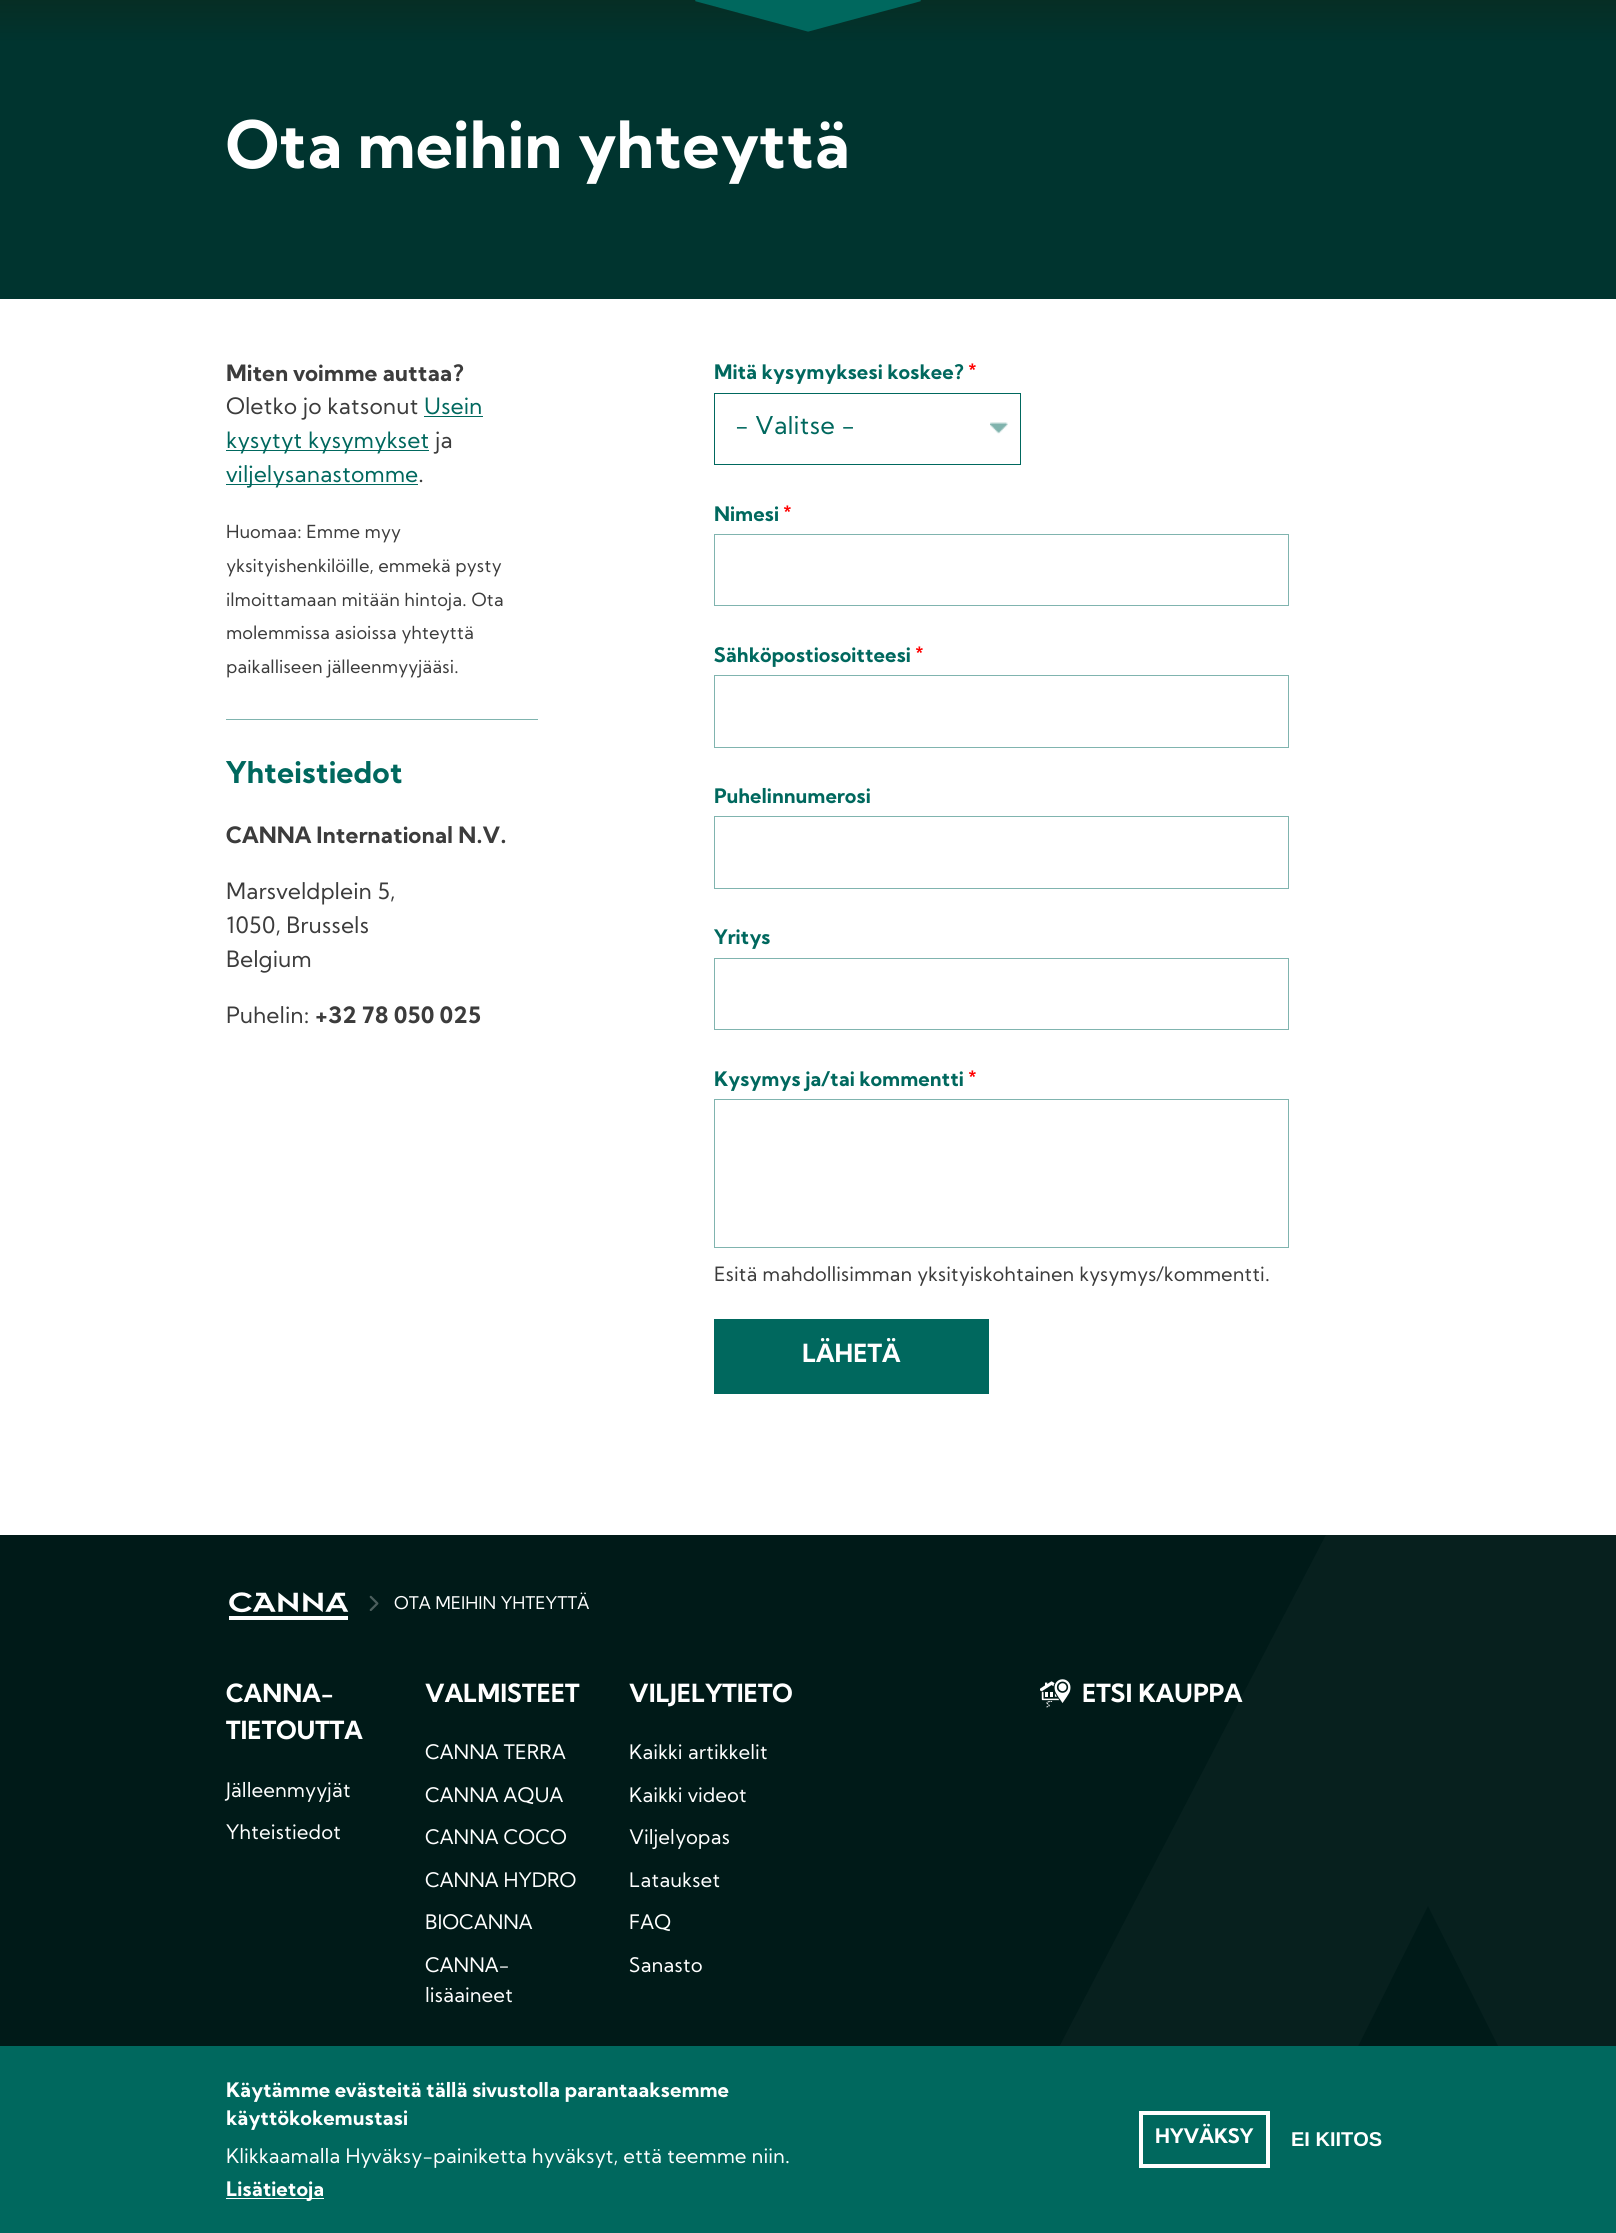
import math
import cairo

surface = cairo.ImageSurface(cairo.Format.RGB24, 1616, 2233)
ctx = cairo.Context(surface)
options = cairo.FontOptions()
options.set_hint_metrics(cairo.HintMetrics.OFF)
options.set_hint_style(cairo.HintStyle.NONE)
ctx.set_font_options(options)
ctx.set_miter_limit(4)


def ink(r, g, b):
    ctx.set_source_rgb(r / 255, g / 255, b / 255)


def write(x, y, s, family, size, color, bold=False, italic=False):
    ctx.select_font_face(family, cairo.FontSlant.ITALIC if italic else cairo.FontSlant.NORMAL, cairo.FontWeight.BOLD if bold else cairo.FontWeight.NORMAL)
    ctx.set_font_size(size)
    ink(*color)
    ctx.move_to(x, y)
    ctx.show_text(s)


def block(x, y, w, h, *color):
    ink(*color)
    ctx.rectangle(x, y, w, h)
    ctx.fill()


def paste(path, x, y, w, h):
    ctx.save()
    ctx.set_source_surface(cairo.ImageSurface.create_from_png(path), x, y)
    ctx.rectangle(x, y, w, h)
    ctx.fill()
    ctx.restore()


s1 = dict(family="Kumbh Sans", size=65, color=(255, 255, 255), bold=True)
s2 = dict(family="Kumbh Sans", size=22.5, color=(60, 60, 60), bold=True)
s3 = dict(family="Kumbh Sans", size=22.5, color=(60, 60, 60))
s4 = dict(family="Kumbh Sans", size=22.5, color=(0, 104, 94))
s5 = dict(family="Kumbh Sans", size=18, color=(60, 60, 60))
s6 = dict(family="Kumbh Sans", size=30, color=(0, 104, 94), bold=True)
s7 = dict(family="Kumbh Sans", size=20, color=(0, 104, 94), bold=True)
s8 = dict(family="Kumbh Sans", size=14, color=(255, 0, 0), bold=True)
s9 = dict(family="Kumbh Sans", size=25, color=(0, 104, 94))
s10 = dict(family="Kumbh Sans", size=19.7, color=(60, 60, 60))
s11 = dict(family="Kumbh Sans", size=25, color=(255, 255, 255), bold=True)
s12 = dict(family="Kumbh Sans", size=17.5, color=(255, 255, 255))
s13 = dict(family="Kumbh Sans", size=20, color=(255, 255, 255))
s14 = dict(family="Kumbh Sans", size=20, color=(255, 255, 255), bold=True)
s15 = dict(family="Liberation Sans", size=20, color=(255, 255, 255), bold=True)

ink(255, 255, 255)
ctx.paint()
gradient = cairo.LinearGradient(808, 43, 808, -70)
gradient.add_color_stop_rgba(0, 0, 0.204, 0.184, 1)
gradient.add_color_stop_rgba(1, 0.063, 0.137, 0.075, 1)
ctx.set_source(gradient)
ctx.rectangle(0, 0, 1616, 43)
ctx.fill()
paste("pic1.png", 695, 0, 226, 32)
block(0, 43, 1616, 256, 0, 52, 47)
write(226, 168, "Ota meihin yhteyttä", **s1)
write(226, 381, "Miten voimme auttaa?", **s2)
write(226, 414, "Oletko jo katsonut", **s3)
write(424, 414, "Usein", **s4)
block(424, 416, 59, 1, 0, 104, 94)
block(226, 450, 203, 1, 0, 104, 94)
write(226, 448, "kysytyt kysymykset", **s4)
write(435, 448, "ja", **s3)
block(226, 484, 192, 1, 0, 104, 94)
write(226, 482, "viljelysanastomme", **s4)
write(418, 482, ".", **s3)
write(226, 538, "Huomaa: Emme myy", **s5)
write(226, 572, "yksityishenkilöille, emmekä pysty", **s5)
write(226, 606, "ilmoittamaan mitään hintoja. Ota", **s5)
write(226, 639, "molemmissa asioissa yhteyttä", **s5)
write(226, 673, "paikalliseen jälleenmyyjääsi.", **s5)
block(226, 719, 312, 1, 128, 180, 175)
write(226, 783, "Yhteistiedot", **s6)
write(226, 843, "CANNA International N.V.", **s2)
write(226, 899, "Marsveldplein 5,", **s3)
write(226, 933, "1050, Brussels", **s3)
write(226, 967, "Belgium", **s3)
write(226, 1023, "Puhelin:", **s3)
write(315, 1023, "+32 78 050 025", **s2)
write(714, 379, "Mitä kysymyksesi koskee?", **s7)
write(968, 374, "*", **s8)
paste("pic2.png", 990, 422, 18, 12)
ctx.rectangle(714.5, 393.5, 306, 71)
ink(0, 104, 94)
ctx.set_line_width(1)
ctx.stroke()
ctx.save()
ctx.rectangle(735, 416, 240, 25)
ctx.clip()
write(735, 434, "- Valitse -", **s9)
ctx.restore()
write(714, 521, "Nimesi", **s7)
write(783, 516, "*", **s8)
ctx.rectangle(714.5, 534.5, 574, 71)
ink(128, 180, 175)
ctx.stroke()
write(714, 662, "Sähköpostiosoitteesi", **s7)
write(915, 657, "*", **s8)
ctx.rectangle(714.5, 675.5, 574, 72)
ink(128, 180, 175)
ctx.stroke()
write(714, 803, "Puhelinnumerosi", **s7)
ctx.rectangle(714.5, 816.5, 574, 72)
ink(128, 180, 175)
ctx.stroke()
write(714, 944, "Yritys", **s7)
ctx.rectangle(714.5, 958.5, 574, 71)
ink(128, 180, 175)
ctx.stroke()
write(714, 1086, "Kysymys ja/tai kommentti", **s7)
write(968, 1081, "*", **s8)
ctx.rectangle(714.5, 1099.5, 574, 148)
ink(128, 180, 175)
ctx.stroke()
write(714, 1281, "Esitä mahdollisimman yksityiskohtainen kysymys/kommentti.", **s10)
block(714, 1319, 275, 75, 0, 104, 94)
write(802, 1362, "LÄHETÄ", **s11)
block(0, 1535, 1616, 511, 0, 26, 24)
paste("pic3.png", 229, 1592, 120, 28)
paste("pic4.png", 369, 1595, 10, 16)
write(394, 1609, "OTA MEIHIN YHTEYTTÄ", **s12)
write(226, 1702, "CANNA-", **s11)
write(226, 1739, "TIETOUTTA", **s11)
write(226, 1797, "Jälleenmyyjät", **s13)
write(226, 1839, "Yhteistiedot", **s13)
write(425, 1702, "VALMISTEET", **s11)
write(425, 1759, "CANNA TERRA", **s13)
write(425, 1802, "CANNA AQUA", **s13)
write(425, 1844, "CANNA COCO", **s13)
write(425, 1887, "CANNA HYDRO", **s13)
write(425, 1929, "BIOCANNA", **s13)
write(425, 1972, "CANNA-", **s13)
write(425, 2002, "lisäaineet", **s13)
write(629, 1702, "VILJELYTIETO", **s11)
write(629, 1759, "Kaikki artikkelit", **s13)
write(629, 1802, "Kaikki videot", **s13)
write(629, 1844, "Viljelyopas", **s13)
write(629, 1887, "Lataukset", **s13)
write(629, 1929, "FAQ", **s13)
write(629, 1972, "Sanasto", **s13)
ctx.set_source_rgba(1, 1, 1, 0.03)
ctx.new_path()
ctx.move_to(1259, 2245)
ctx.line_to(1428, 1906)
ctx.line_to(1598, 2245)
ctx.line_to(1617, 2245)
ctx.line_to(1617, 1531)
ctx.line_to(1328, 1531)
ctx.line_to(956, 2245)
ctx.close_path()
ctx.fill()
paste("pic5.png", 1040, 1679, 31, 29)
write(1082, 1702, "ETSI KAUPPA", **s11)
block(0, 2046, 1616, 187, 0, 104, 94)
write(226, 2097, "Käytämme evästeitä tällä sivustolla parantaaksemme", **s14)
write(226, 2125, "käyttökokemustasi", **s14)
write(226, 2163, "Klikkaamalla Hyväksy-painiketta hyväksyt, että teemme niin.", **s13)
block(226, 2198, 98, 1, 255, 255, 255)
write(226, 2196, "Lisätietoja", **s14)
ctx.rectangle(1141, 2113, 127, 53)
ctx.set_line_width(4)
ctx.stroke()
write(1155, 2143, "HYVÄKSY", **s14)
write(1291, 2146, "EI KIITOS", **s15)
surface.write_to_png("screenshot.png")
